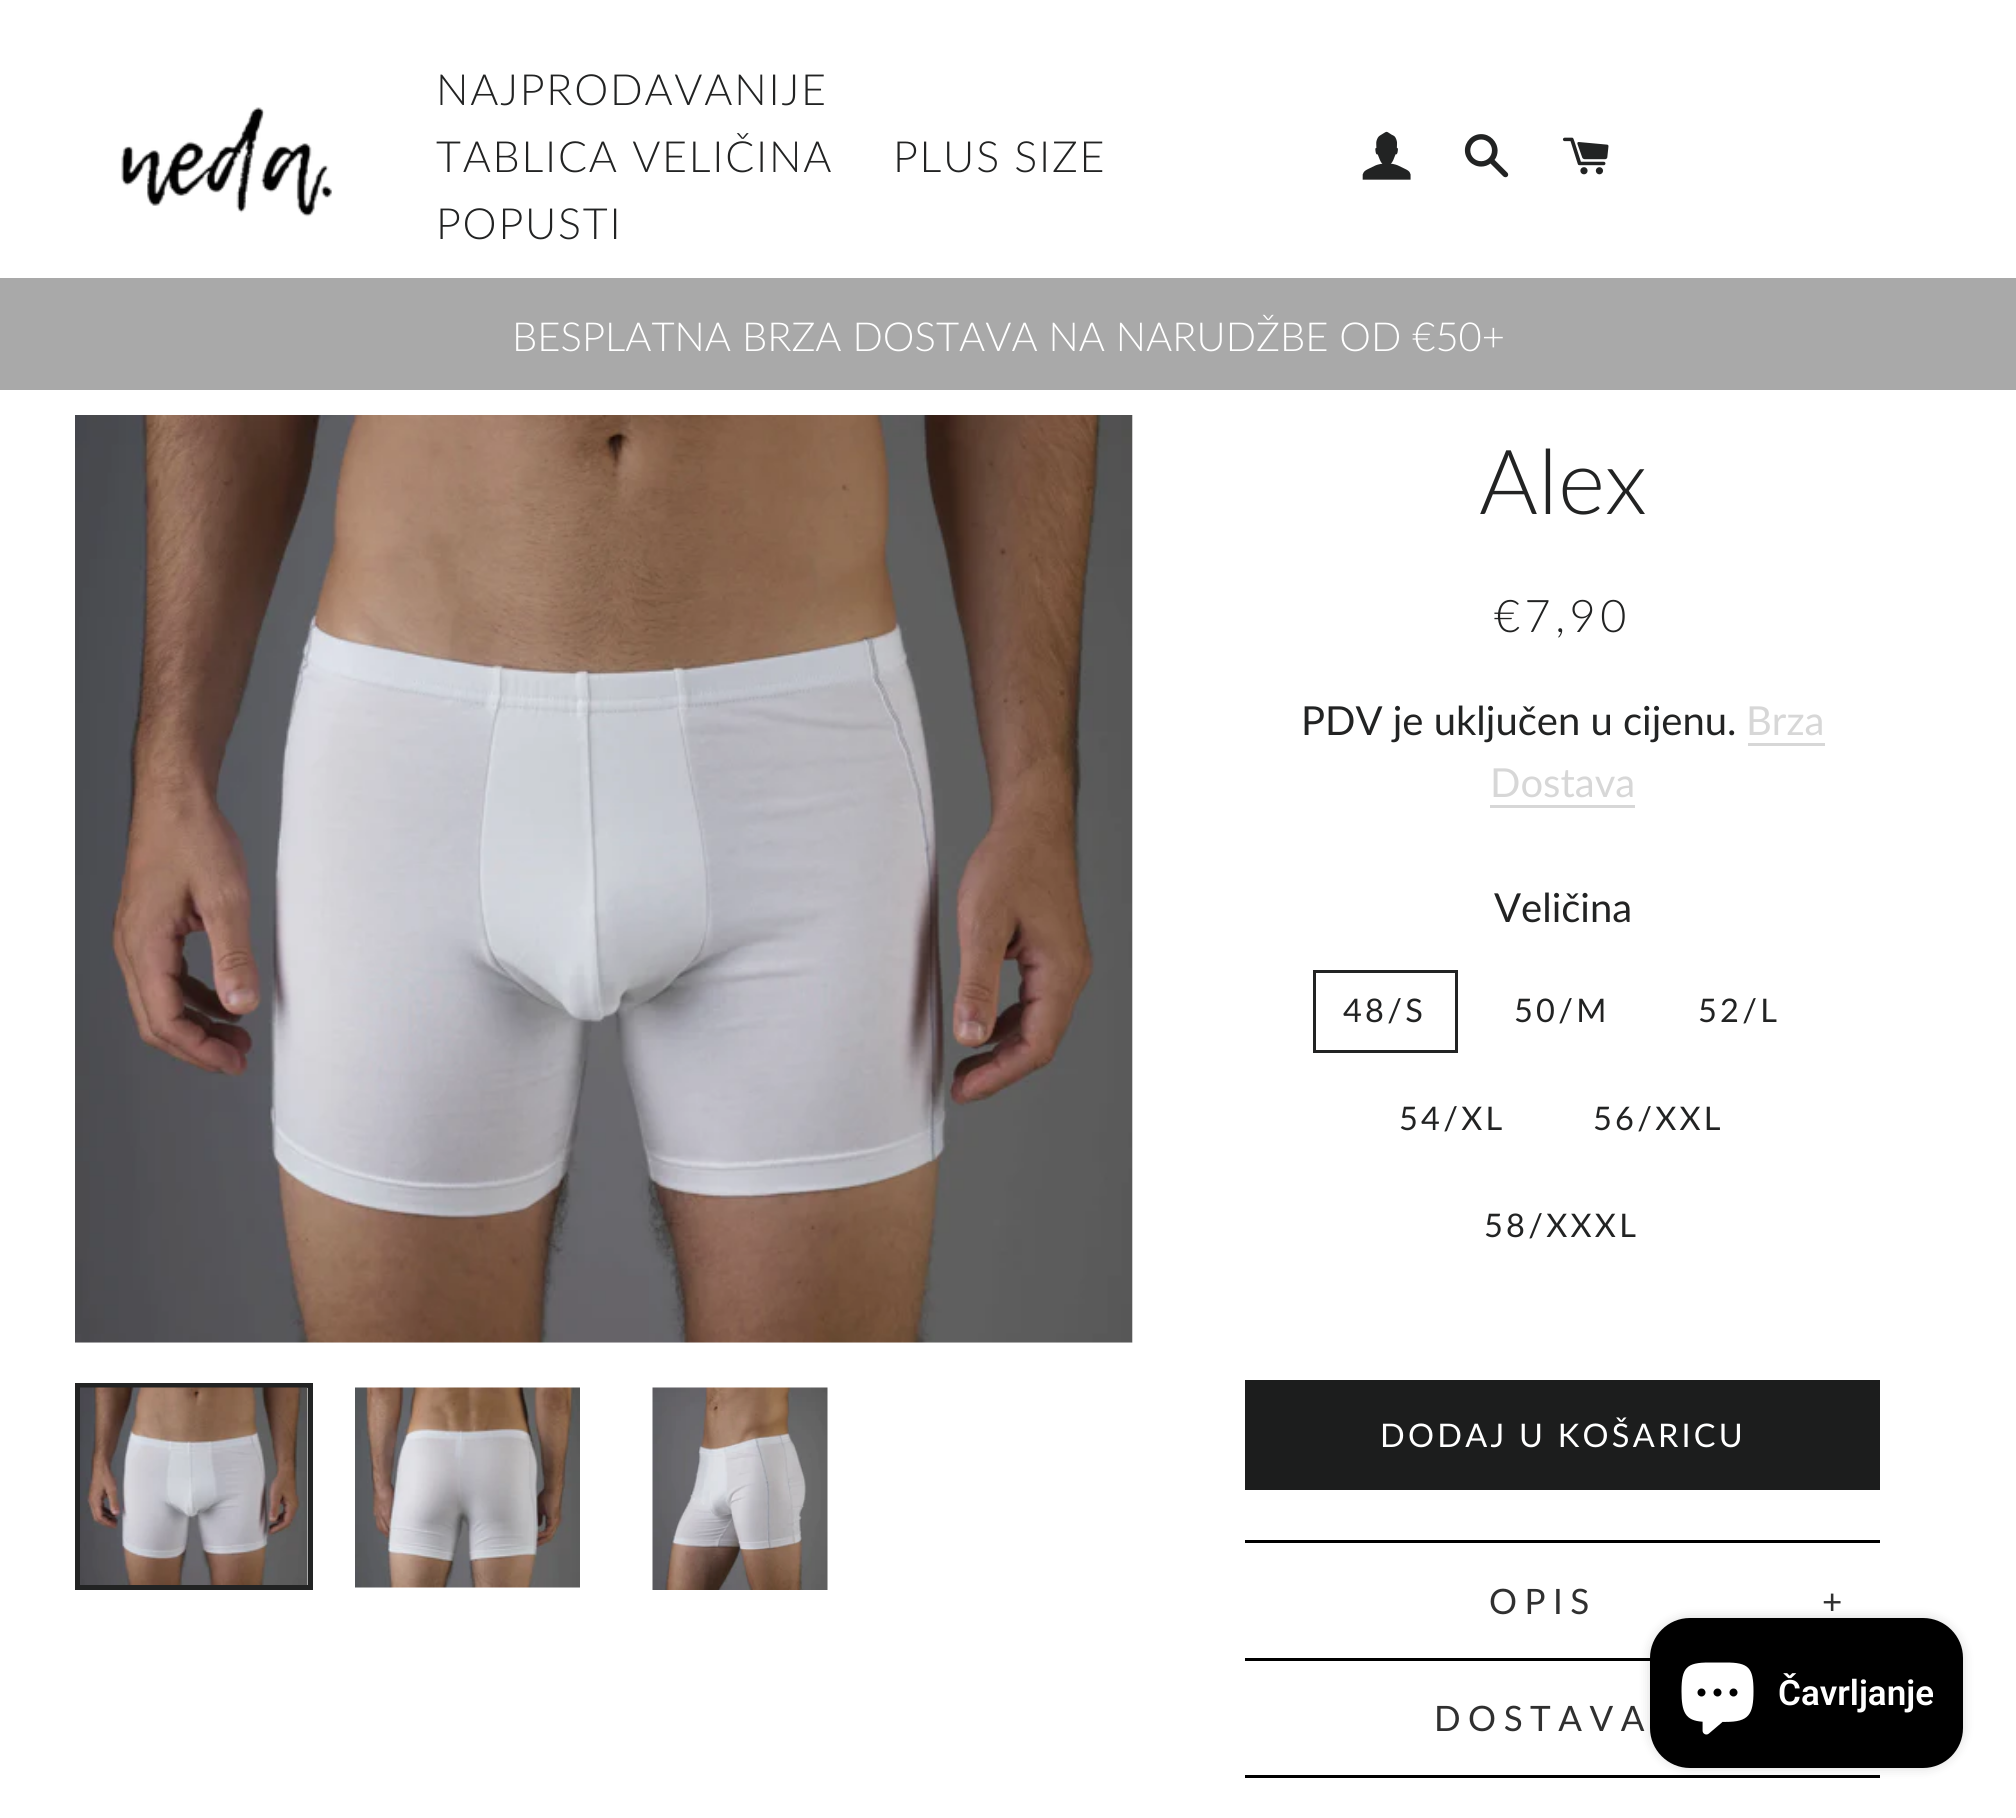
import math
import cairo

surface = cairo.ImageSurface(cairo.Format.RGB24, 2016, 1818)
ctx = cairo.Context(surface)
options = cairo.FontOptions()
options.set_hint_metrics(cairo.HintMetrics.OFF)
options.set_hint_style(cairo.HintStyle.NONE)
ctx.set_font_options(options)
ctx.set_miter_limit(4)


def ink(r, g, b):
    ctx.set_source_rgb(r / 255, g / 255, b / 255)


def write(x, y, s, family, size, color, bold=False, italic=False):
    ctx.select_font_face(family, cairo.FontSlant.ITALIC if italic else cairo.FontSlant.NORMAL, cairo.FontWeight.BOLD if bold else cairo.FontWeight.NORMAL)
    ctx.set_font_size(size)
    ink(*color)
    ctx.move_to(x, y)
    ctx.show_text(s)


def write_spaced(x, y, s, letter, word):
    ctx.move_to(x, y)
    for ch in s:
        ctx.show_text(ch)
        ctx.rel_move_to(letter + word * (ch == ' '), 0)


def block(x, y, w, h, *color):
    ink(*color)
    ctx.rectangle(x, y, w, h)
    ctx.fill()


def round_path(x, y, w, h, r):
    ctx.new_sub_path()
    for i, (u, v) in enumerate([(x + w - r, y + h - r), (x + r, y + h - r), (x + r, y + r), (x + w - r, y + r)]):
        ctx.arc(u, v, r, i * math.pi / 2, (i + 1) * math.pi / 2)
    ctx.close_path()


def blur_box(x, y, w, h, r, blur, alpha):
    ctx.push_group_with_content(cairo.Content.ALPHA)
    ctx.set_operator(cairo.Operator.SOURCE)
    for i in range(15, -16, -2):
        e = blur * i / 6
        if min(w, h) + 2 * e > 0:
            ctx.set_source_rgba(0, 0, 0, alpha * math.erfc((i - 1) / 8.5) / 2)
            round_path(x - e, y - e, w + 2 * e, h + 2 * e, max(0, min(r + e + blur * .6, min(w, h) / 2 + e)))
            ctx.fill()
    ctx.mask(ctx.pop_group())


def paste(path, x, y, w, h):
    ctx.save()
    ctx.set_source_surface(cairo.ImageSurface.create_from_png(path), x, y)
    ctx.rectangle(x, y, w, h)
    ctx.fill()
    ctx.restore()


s1 = dict(family="Lato Light", size=40, color=(255, 255, 255))
s2 = dict(family="Lato Light", size=90, color=(34, 35, 35))
s3 = dict(family="Lato", size=40, color=(34, 35, 35))
s4 = dict(family="Lato", size=40, color=(215, 215, 215))
s5 = dict(family="Roboto SemiBold", size=35, color=(255, 255, 255))

ink(255, 255, 255)
ctx.paint()
paste("pic1.png", 121, 107, 211, 110)
ctx.select_font_face("Lato Light")
ctx.set_font_size(43)
ink(34, 35, 35)
write_spaced(436, 105, "NAJPRODAVANIJE", 1.75, 0)
write_spaced(436, 172, "TABLICA VELIČINA", 1.75, 0)
write_spaced(893, 172, "PLUS SIZE", 1.75, 0)
write_spaced(436, 239, "POPUSTI", 1.75, 0)
paste("pic2.png", 1362, 131, 49, 49)
paste("pic3.png", 1464, 134, 45, 44)
paste("pic4.png", 1562, 137, 47, 38)
block(0, 278, 2016, 112, 169, 169, 169)
write(512, 351, "BESPLATNA BRZA DOSTAVA NA NARUDŽBE OD €50+", **s1)
block(75, 415, 1058, 928, 247, 247, 247)
paste("pic5.png", 75, 415, 1058, 928)
ctx.rectangle(77.5, 1385.5, 233, 202)
ink(34, 35, 35)
ctx.set_line_width(5)
ctx.stroke()
paste("pic6.png", 80, 1387, 228, 198)
paste("pic7.png", 355, 1387, 225, 201)
paste("pic8.png", 652, 1387, 176, 203)
write(1479, 514, "Alex", **s2)
ctx.set_font_size(45)
write_spaced(1494, 632, "€7,90", 4.5, 0)
write(1301, 735, "PDV je uključen u cijenu.", **s3)
write(1746, 735, "Brza", **s4)
block(1748, 743, 77, 3, 215, 215, 215)
write(1490, 797, "Dostava", **s4)
block(1490, 805, 145, 3, 215, 215, 215)
write(1494, 922, "Veličina", **s3)
ctx.rectangle(1314.5, 971.5, 142, 80)
ctx.set_line_width(3)
ctx.stroke()
ctx.set_font_size(32.5)
write_spaced(1343, 1022, "48/S", 3.25, 0)
write_spaced(1514, 1022, "50/M", 3.25, 0)
write_spaced(1698, 1022, "52/L", 3.25, 0)
write_spaced(1399, 1130, "54/XL", 3.25, 0)
write_spaced(1593, 1130, "56/XXL", 3.25, 0)
write_spaced(1484, 1237, "58/XXXL", 3.25, 0)
block(1245, 1380, 635, 110, 28, 29, 29)
ink(255, 255, 255)
write_spaced(1380, 1447, "DODAJ U KOŠARICU", 3.25, 0)
block(1245, 1540, 635, 3, 0, 0, 0)
ctx.set_font_size(35)
ink(48, 48, 48)
write_spaced(1489, 1614, "OPIS", 7.5, 0)
write_spaced(1822, 1614, "+", 7.5, 0)
block(1245, 1658, 405, 3, 0, 0, 0)
ink(48, 48, 48)
write_spaced(1434, 1731, "DOSTAVA", 7.5, 0)
block(1245, 1775, 635, 3, 0, 0, 0)
ink(0, 0, 0)
blur_box(1650, 1618, 313, 150, 40, 6, 0.15)
ink(0, 0, 0)
round_path(1650, 1618, 313, 150, 40)
ctx.fill()
paste("pic9.png", 1681, 1662, 73, 73)
write(1778, 1705, "Čavrljanje", **s5)
surface.write_to_png("screenshot.png")
